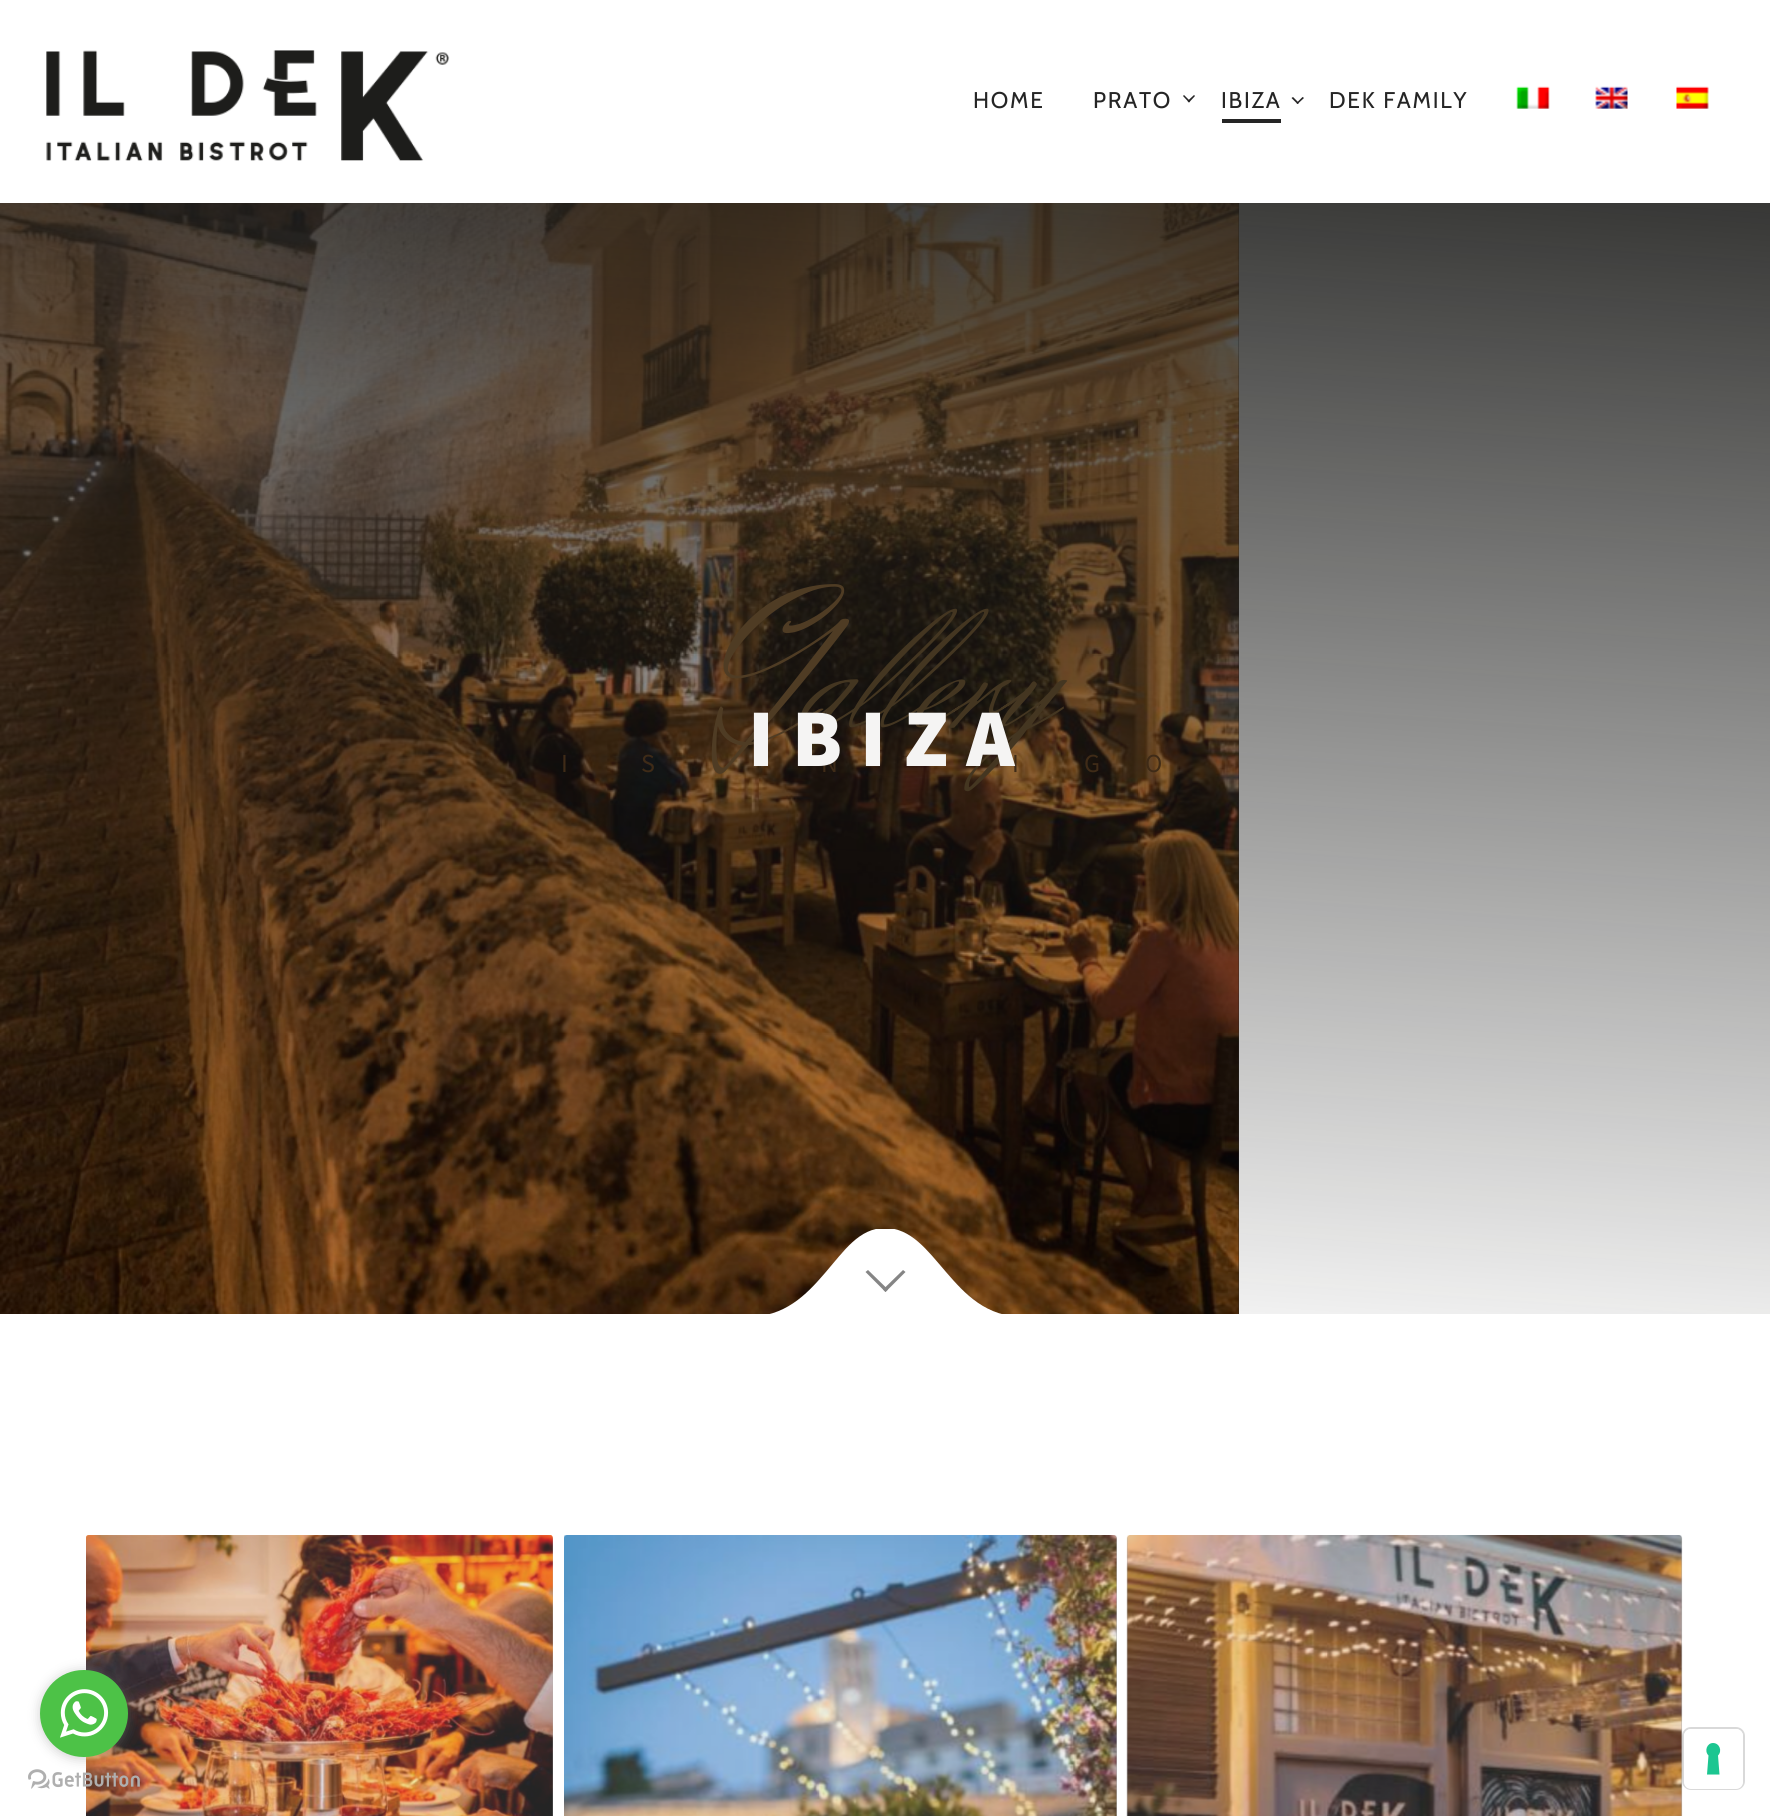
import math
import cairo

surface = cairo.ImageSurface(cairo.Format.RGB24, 1770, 1816)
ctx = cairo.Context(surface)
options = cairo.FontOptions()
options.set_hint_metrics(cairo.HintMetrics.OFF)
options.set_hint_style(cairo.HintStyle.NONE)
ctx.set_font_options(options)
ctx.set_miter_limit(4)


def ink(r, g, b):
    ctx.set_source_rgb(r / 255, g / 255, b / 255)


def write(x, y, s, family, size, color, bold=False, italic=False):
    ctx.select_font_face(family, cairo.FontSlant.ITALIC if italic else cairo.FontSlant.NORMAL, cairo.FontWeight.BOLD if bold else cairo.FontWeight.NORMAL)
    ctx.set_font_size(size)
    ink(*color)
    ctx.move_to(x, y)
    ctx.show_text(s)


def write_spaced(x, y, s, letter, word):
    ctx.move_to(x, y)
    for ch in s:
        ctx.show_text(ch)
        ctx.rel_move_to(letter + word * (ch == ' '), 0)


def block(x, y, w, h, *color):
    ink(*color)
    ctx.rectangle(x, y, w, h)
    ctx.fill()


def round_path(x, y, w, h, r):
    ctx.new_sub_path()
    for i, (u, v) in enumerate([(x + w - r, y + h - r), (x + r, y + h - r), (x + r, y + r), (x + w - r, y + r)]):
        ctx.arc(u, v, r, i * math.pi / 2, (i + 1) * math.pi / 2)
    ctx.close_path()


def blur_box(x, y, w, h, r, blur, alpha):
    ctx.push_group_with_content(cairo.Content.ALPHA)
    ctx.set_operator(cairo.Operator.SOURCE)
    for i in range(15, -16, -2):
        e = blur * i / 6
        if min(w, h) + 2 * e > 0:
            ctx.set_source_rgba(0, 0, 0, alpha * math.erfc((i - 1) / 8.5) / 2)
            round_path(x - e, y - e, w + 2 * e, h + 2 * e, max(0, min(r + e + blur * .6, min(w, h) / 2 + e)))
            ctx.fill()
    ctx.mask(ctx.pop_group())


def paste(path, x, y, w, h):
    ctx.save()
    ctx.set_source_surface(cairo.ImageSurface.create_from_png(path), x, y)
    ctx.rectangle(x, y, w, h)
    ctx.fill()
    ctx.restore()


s1 = dict(family="Herr Von Muellerhoff", size=175, color=(68, 54, 33))

ink(255, 255, 255)
ctx.paint()
paste("pic1.png", 46, 50, 404, 111)
ctx.select_font_face("Cabin")
ctx.set_font_size(22.75)
ink(37, 37, 37)
write_spaced(973, 108, "HOME", 1.75, 0)
write_spaced(1093, 108, "PRATO", 1.75, 0)
ink(38, 37, 38)
ctx.new_path()
ctx.move_to(1194, 95)
ctx.line_to(1195, 96)
ctx.line_to(1189, 102.5)
ctx.line_to(1187.5, 101)
ctx.close_path()
ctx.fill()
ctx.new_path()
ctx.move_to(1184, 95)
ctx.line_to(1190, 101)
ctx.line_to(1189, 102.5)
ctx.line_to(1183, 96)
ctx.close_path()
ctx.fill()
ink(37, 37, 37)
write_spaced(1221, 108, "IBIZA", 1.75, 0)
block(1222, 119, 59, 4, 37, 37, 37)
ink(38, 37, 38)
ctx.new_path()
ctx.move_to(1302.5, 97)
ctx.line_to(1304, 98)
ctx.line_to(1297.5, 104)
ctx.line_to(1296.5, 103)
ctx.close_path()
ctx.fill()
ctx.new_path()
ctx.move_to(1293, 97)
ctx.line_to(1299, 103)
ctx.line_to(1297.5, 104)
ctx.line_to(1291.5, 98)
ctx.close_path()
ctx.fill()
ink(37, 37, 37)
write_spaced(1329, 108, "DEK FAMILY", 1.75, 0)
paste("pic2.png", 1516, 86, 34, 23)
paste("pic3.png", 1595, 86, 33, 23)
paste("pic4.png", 1676, 86, 33, 23)
block(1238, 203, 1, 1111, 37, 37, 37)
paste("pic5.png", 0, 203, 1239, 1111)
gradient = cairo.LinearGradient(934, -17, 837, 1373)
gradient.add_color_stop_rgba(0, 0.114, 0.114, 0.106, 1)
gradient.add_color_stop_rgba(1, 0.114, 0.114, 0.106, 0)
ctx.set_source(gradient)
ctx.rectangle(0, 203, 1770, 1111)
ctx.fill()
ctx.select_font_face("Source Sans Pro")
ctx.set_font_size(26)
ink(63, 43, 23)
write_spaced(821, 772, "N", 8, 0)
write_spaced(1012, 772, "I", 8, 0)
write(800, 727, "allery", **s1)
ctx.set_font_size(214)
ink(79, 60, 36)
write_spaced(713, 742, "G", 126, 0)
ctx.select_font_face("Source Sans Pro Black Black")
ctx.set_font_size(82)
ink(245, 244, 243)
write_spaced(748, 766, "IBIZA", 18, 0)
ctx.select_font_face("Source Sans Pro")
ctx.set_font_size(26)
ink(63, 43, 23)
write_spaced(561, 772, "I", 8, 0)
write_spaced(641, 772, "S", 8, 0)
write_spaced(1084, 772, "G", 8, 0)
write_spaced(1145, 772, "O", 8, 0)
ctx.save()
ctx.rectangle(718, 1229, 336, 106)
ctx.clip()
ink(255, 255, 255)
ctx.new_path()
ctx.move_to(885, 1335)
ctx.line_to(960, 1326)
ctx.curve_to(997, 1321, 1031, 1317, 1024, 1317)
ctx.curve_to(986, 1317, 965, 1294, 946, 1272)
ctx.curve_to(927, 1250, 911, 1228, 885, 1228)
ctx.curve_to(859, 1228, 844, 1251, 825, 1273)
ctx.curve_to(806, 1295, 785, 1317, 747, 1317)
ctx.curve_to(740, 1317, 736, 1317, 753, 1319)
ctx.close_path()
ctx.fill()
ctx.restore()
ink(133, 133, 133)
ctx.new_path()
ctx.move_to(903, 1270)
ctx.line_to(905.5, 1272)
ctx.line_to(885.5, 1292)
ctx.line_to(883, 1289.5)
ctx.close_path()
ctx.fill()
ctx.new_path()
ctx.move_to(868, 1270)
ctx.line_to(888, 1289.5)
ctx.line_to(885.5, 1292)
ctx.line_to(865.5, 1272)
ctx.close_path()
ctx.fill()
ink(179, 179, 179)
round_path(86, 1535, 467, 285, 4)
ctx.fill()
paste("pic6.png", 86, 1535, 467, 281)
round_path(564, 1535, 553, 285, 4)
ctx.fill()
paste("pic7.png", 564, 1535, 553, 281)
round_path(1127, 1535, 555, 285, 4)
ctx.fill()
paste("pic8.png", 1126, 1535, 557, 281)
paste("pic10.png", 28, 1769, 112, 20)
ink(136, 136, 136)
blur_box(40, 1671, 88, 88, 44, 6, 0.4)
ink(77, 194, 71)
round_path(40, 1670, 88, 87, 43.5)
ctx.fill()
paste("pic9.png", 60, 1689, 49, 49)
round_path(1683, 1728, 61, 61, 8)
ctx.set_source_rgba(0, 0, 0, 0.15)
ctx.stroke()
ink(255, 255, 255)
round_path(1684, 1729, 59, 60, 7)
ctx.fill()
ink(28, 198, 145)
ctx.set_fill_rule(cairo.FillRule.EVEN_ODD)
ctx.new_path()
ctx.move_to(1713, 1743)
ctx.curve_to(1719.5, 1743, 1722.5, 1751, 1718, 1755.5)
ctx.line_to(1719.5, 1774.5)
ctx.line_to(1707, 1774.5)
ctx.line_to(1708.5, 1755.5)
ctx.curve_to(1704, 1751, 1707, 1743, 1713, 1743)
ctx.close_path()
ctx.fill()
surface.write_to_png("screenshot.png")
